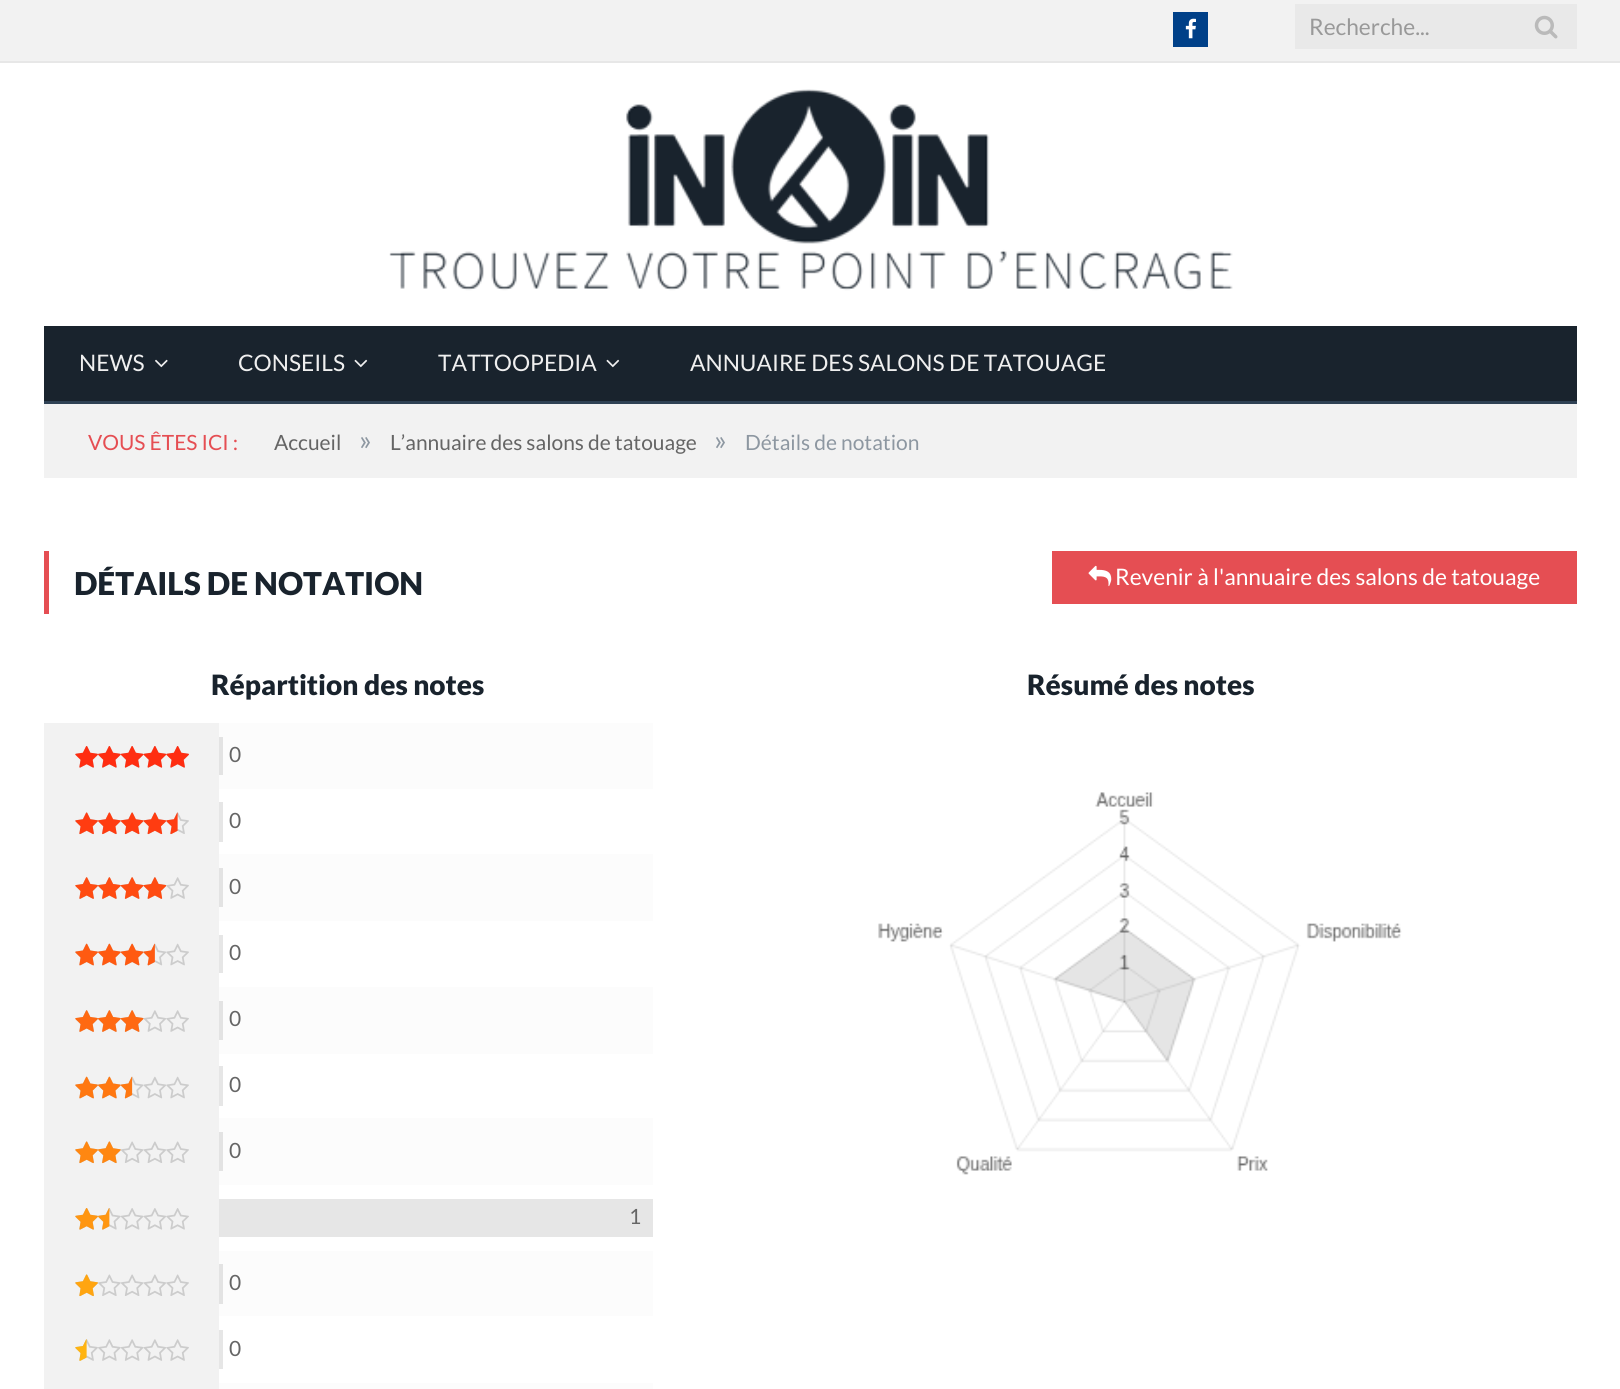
import math
import cairo

surface = cairo.ImageSurface(cairo.Format.RGB24, 1620, 1389)
ctx = cairo.Context(surface)
options = cairo.FontOptions()
options.set_hint_metrics(cairo.HintMetrics.OFF)
options.set_hint_style(cairo.HintStyle.NONE)
ctx.set_font_options(options)
ctx.set_miter_limit(4)


def ink(r, g, b):
    ctx.set_source_rgb(r / 255, g / 255, b / 255)


def write(x, y, s, family, size, color, bold=False, italic=False):
    ctx.select_font_face(family, cairo.FontSlant.ITALIC if italic else cairo.FontSlant.NORMAL, cairo.FontWeight.BOLD if bold else cairo.FontWeight.NORMAL)
    ctx.set_font_size(size)
    ink(*color)
    ctx.move_to(x, y)
    ctx.show_text(s)


def block(x, y, w, h, *color):
    ink(*color)
    ctx.rectangle(x, y, w, h)
    ctx.fill()


def paste(path, x, y, w, h):
    ctx.save()
    ctx.set_source_surface(cairo.ImageSurface.create_from_png(path), x, y)
    ctx.rectangle(x, y, w, h)
    ctx.fill()
    ctx.restore()


s1 = dict(family="Lato", size=22.75, color=(153, 153, 153))
s2 = dict(family="Lato", size=22.75, color=(239, 239, 239))
s3 = dict(family="Lato", size=21, color=(229, 78, 83))
s4 = dict(family="Lato", size=21, color=(101, 101, 101))
s5 = dict(family="Lato", size=28, color=(141, 151, 161))
s6 = dict(family="Lato", size=21, color=(141, 151, 161))
s7 = dict(family="Lato Black", size=31.5, color=(25, 35, 45))
s8 = dict(family="Lato", size=22.75, color=(255, 255, 255))
s9 = dict(family="Lato Black", size=28, color=(25, 35, 45))

ink(255, 255, 255)
ctx.paint()
block(0, 0, 1620, 61, 242, 242, 242)
block(0, 61, 1620, 2, 231, 231, 231)
block(1173, 12, 35, 35, 0, 64, 136)
paste("pic1.png", 1185, 18, 11, 21)
block(1295, 4, 282, 45, 233, 233, 233)
write(1309, 35, "Recherche...", **s1)
paste("pic2.png", 1534, 15, 24, 24)
paste("pic3.png", 389, 89, 844, 202)
block(44, 326, 1533, 75, 25, 35, 45)
block(44, 401, 1533, 3, 47, 65, 84)
write(79, 371, "NEWS", **s2)
paste("pic4.png", 155, 359, 13, 9)
write(238, 371, "CONSEILS", **s2)
paste("pic5.png", 354, 359, 14, 9)
write(438, 371, "TATTOOPEDIA", **s2)
paste("pic5.png", 606, 359, 14, 9)
write(690, 371, "ANNUAIRE DES SALONS DE TATOUAGE", **s2)
block(44, 404, 1533, 74, 242, 242, 242)
write(88, 450, "VOUS ÊTES ICI :", **s3)
write(274, 450, "Accueil", **s4)
write(359, 450, "»", **s5)
write(390, 450, "L’annuaire des salons de tatouage", **s4)
write(714, 450, "»", **s5)
write(745, 450, "Détails de notation", **s6)
block(44, 551, 5, 63, 229, 78, 83)
write(74, 595, "DÉTAILS DE NOTATION", **s7)
block(1052, 551, 525, 53, 229, 78, 83)
paste("pic6.png", 1088, 565, 24, 22)
write(1115, 585, "Revenir à l'annuaire des salons de tatouage", **s8)
write(211, 695, "Répartition des notes", **s9)
block(44, 723, 175, 666, 242, 242, 242)
paste("pic7.png", 75, 746, 114, 22)
paste("pic8.png", 75, 746, 114, 22)
block(219, 723, 434, 66, 252, 252, 252)
block(219, 737, 4, 38, 227, 227, 227)
write(229, 762, "0", **s4)
paste("pic9.png", 75, 812, 114, 22)
paste("pic10.png", 75, 812, 103, 23)
block(219, 802, 4, 40, 230, 230, 230)
write(229, 828, "0", **s4)
paste("pic11.png", 75, 877, 114, 22)
paste("pic12.png", 75, 877, 92, 22)
block(219, 854, 434, 67, 252, 252, 252)
block(219, 868, 4, 39, 227, 227, 227)
write(229, 894, "0", **s4)
paste("pic13.png", 75, 943, 114, 23)
paste("pic14.png", 75, 943, 80, 23)
block(219, 935, 4, 38, 230, 230, 230)
write(229, 960, "0", **s4)
paste("pic11.png", 75, 1010, 114, 22)
paste("pic15.png", 75, 1010, 69, 22)
block(219, 987, 434, 67, 252, 252, 252)
block(219, 1001, 4, 39, 227, 227, 227)
write(229, 1026, "0", **s4)
paste("pic13.png", 75, 1076, 114, 23)
paste("pic16.png", 75, 1076, 58, 23)
block(219, 1066, 4, 40, 230, 230, 230)
write(229, 1092, "0", **s4)
paste("pic9.png", 75, 1141, 114, 22)
paste("pic17.png", 75, 1141, 46, 23)
block(219, 1118, 434, 67, 252, 252, 252)
block(219, 1132, 4, 39, 227, 227, 227)
write(229, 1158, "0", **s4)
paste("pic7.png", 75, 1208, 114, 22)
paste("pic18.png", 75, 1208, 35, 22)
block(219, 1199, 434, 38, 230, 230, 230)
write(629, 1224, "1", **s4)
paste("pic9.png", 75, 1274, 114, 22)
paste("pic19.png", 75, 1274, 23, 23)
block(219, 1251, 434, 65, 252, 252, 252)
block(219, 1264, 4, 40, 227, 227, 227)
write(229, 1290, "0", **s4)
paste("pic11.png", 75, 1339, 114, 22)
paste("pic20.png", 75, 1339, 12, 22)
block(219, 1330, 4, 39, 230, 230, 230)
write(229, 1356, "0", **s4)
block(219, 1383, 434, 6, 252, 252, 252)
write(1027, 695, "Résumé des notes", **s9)
paste("pic21.png", 878, 792, 524, 383)
surface.write_to_png("screenshot.png")
